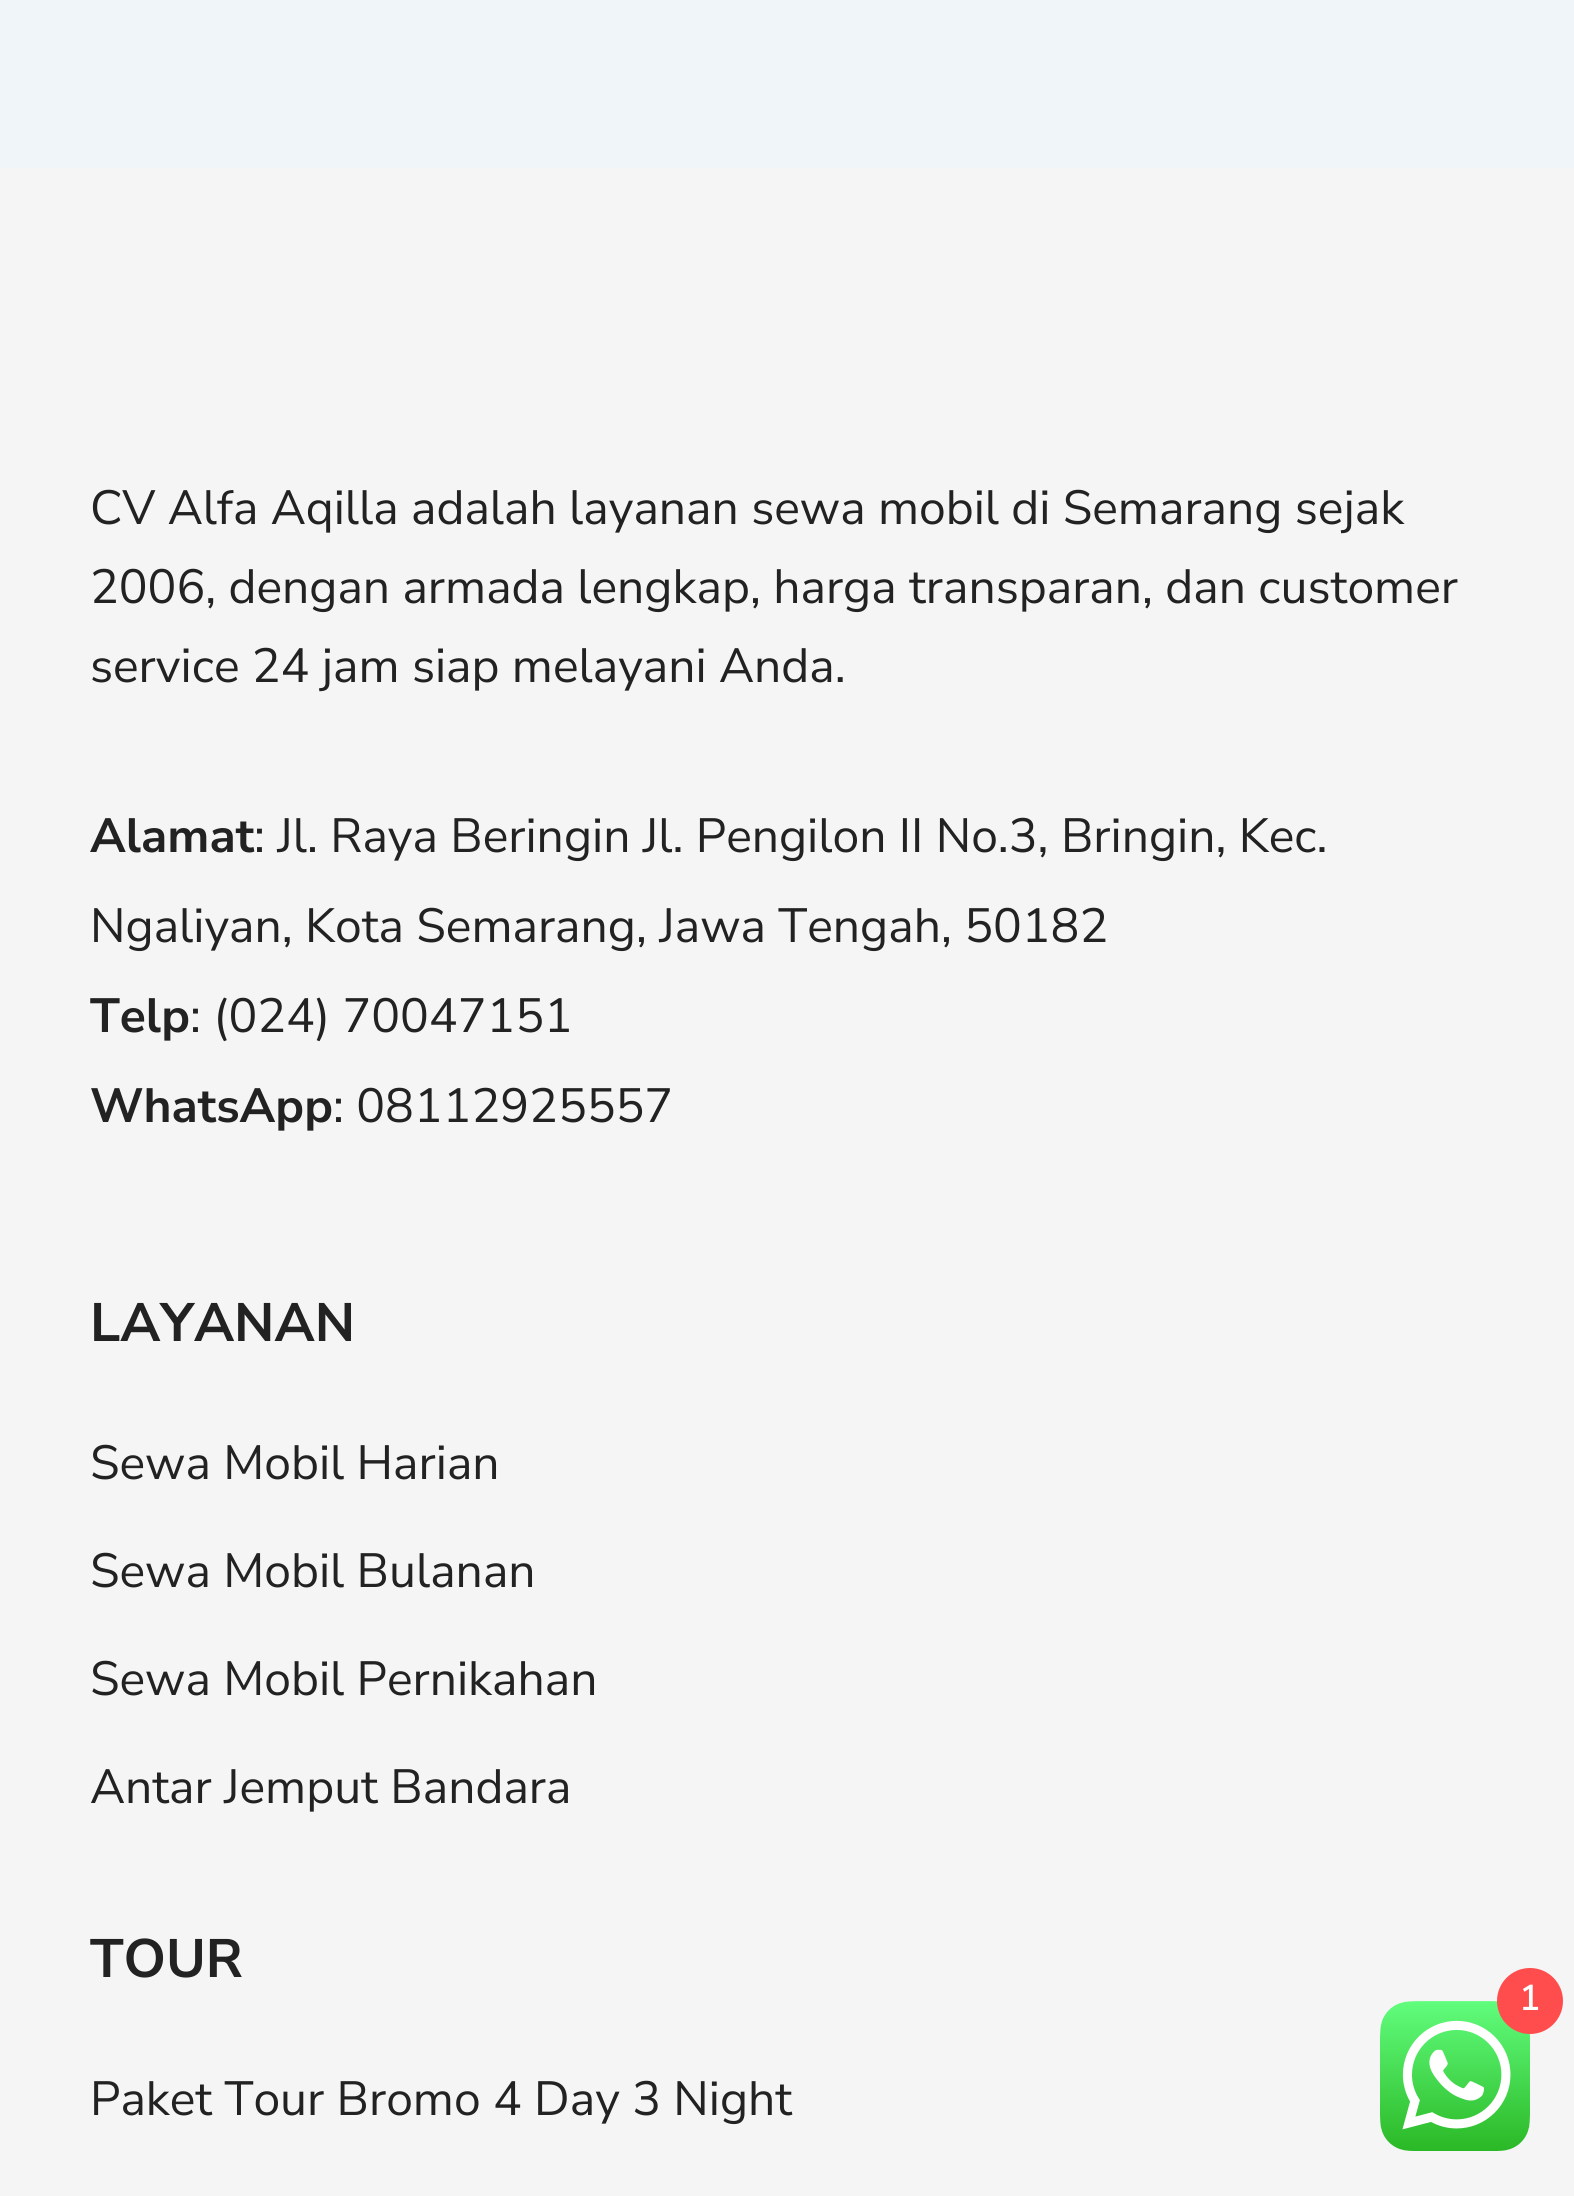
import math
import cairo

surface = cairo.ImageSurface(cairo.Format.RGB24, 1574, 2196)
ctx = cairo.Context(surface)
options = cairo.FontOptions()
options.set_hint_metrics(cairo.HintMetrics.OFF)
options.set_hint_style(cairo.HintStyle.NONE)
ctx.set_font_options(options)
ctx.set_miter_limit(4)


def ink(r, g, b):
    ctx.set_source_rgb(r / 255, g / 255, b / 255)


def write(x, y, s, family, size, color, bold=False, italic=False):
    ctx.select_font_face(family, cairo.FontSlant.ITALIC if italic else cairo.FontSlant.NORMAL, cairo.FontWeight.BOLD if bold else cairo.FontWeight.NORMAL)
    ctx.set_font_size(size)
    ink(*color)
    ctx.move_to(x, y)
    ctx.show_text(s)


def block(x, y, w, h, *color):
    ink(*color)
    ctx.rectangle(x, y, w, h)
    ctx.fill()


def paste(path, x, y, w, h):
    ctx.save()
    ctx.set_source_surface(cairo.ImageSurface.create_from_png(path), x, y)
    ctx.rectangle(x, y, w, h)
    ctx.fill()
    ctx.restore()


s1 = dict(family="Nunito Sans", size=48, color=(34, 34, 34))
s2 = dict(family="Nunito Sans", size=48, color=(34, 34, 34), bold=True)
s3 = dict(family="Nunito Sans", size=54, color=(34, 34, 34), bold=True)
s4 = dict(family="Nunito Sans SemiBold", size=36, color=(255, 255, 255))

ink(240, 245, 250)
ctx.paint()
block(0, 168, 1574, 2028, 245, 245, 245)
write(90, 524, "CV Alfa Aqilla adalah layanan sewa mobil di Semarang sejak", **s1)
write(90, 603, "2006, dengan armada lengkap, harga transparan, dan customer", **s1)
write(90, 682, "service 24 jam siap melayani Anda.", **s1)
write(90, 852, "Alamat", **s2)
write(254, 852, ": Jl. Raya Beringin Jl. Pengilon II No.3, Bringin, Kec.", **s1)
write(90, 942, "Ngaliyan, Kota Semarang, Jawa Tengah, 50182", **s1)
write(90, 1032, "Telp", **s2)
write(190, 1032, ": (024) 70047151", **s1)
write(90, 1122, "WhatsApp", **s2)
write(333, 1122, ": 08112925557", **s1)
write(90, 1341, "LAYANAN", **s3)
write(90, 1479, "Sewa Mobil Harian", **s1)
write(90, 1587, "Sewa Mobil Bulanan", **s1)
write(90, 1695, "Sewa Mobil Pernikahan", **s1)
write(90, 1803, "Antar Jemput Bandara", **s1)
write(90, 1977, "TOUR", **s3)
write(90, 2115, "Paket Tour Bromo 4 Day 3 Night", **s1)
paste("pic1.png", 1380, 2001, 150, 150)
ink(255, 76, 76)
ctx.arc(1530, 2001, 33, 0, 2 * math.pi)
ctx.fill()
write(1519, 2010, "1", **s4)
surface.write_to_png("screenshot.png")
